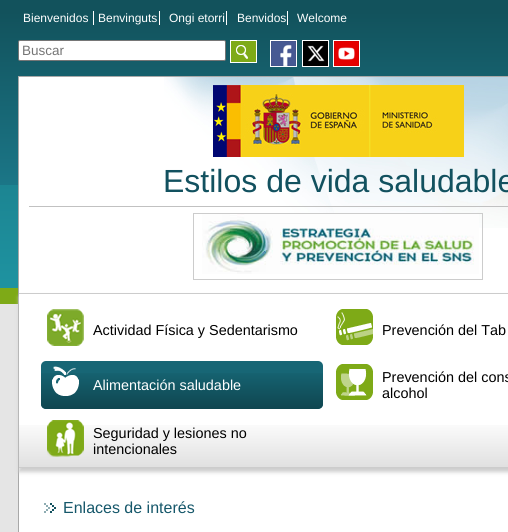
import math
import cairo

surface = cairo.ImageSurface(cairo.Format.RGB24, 508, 532)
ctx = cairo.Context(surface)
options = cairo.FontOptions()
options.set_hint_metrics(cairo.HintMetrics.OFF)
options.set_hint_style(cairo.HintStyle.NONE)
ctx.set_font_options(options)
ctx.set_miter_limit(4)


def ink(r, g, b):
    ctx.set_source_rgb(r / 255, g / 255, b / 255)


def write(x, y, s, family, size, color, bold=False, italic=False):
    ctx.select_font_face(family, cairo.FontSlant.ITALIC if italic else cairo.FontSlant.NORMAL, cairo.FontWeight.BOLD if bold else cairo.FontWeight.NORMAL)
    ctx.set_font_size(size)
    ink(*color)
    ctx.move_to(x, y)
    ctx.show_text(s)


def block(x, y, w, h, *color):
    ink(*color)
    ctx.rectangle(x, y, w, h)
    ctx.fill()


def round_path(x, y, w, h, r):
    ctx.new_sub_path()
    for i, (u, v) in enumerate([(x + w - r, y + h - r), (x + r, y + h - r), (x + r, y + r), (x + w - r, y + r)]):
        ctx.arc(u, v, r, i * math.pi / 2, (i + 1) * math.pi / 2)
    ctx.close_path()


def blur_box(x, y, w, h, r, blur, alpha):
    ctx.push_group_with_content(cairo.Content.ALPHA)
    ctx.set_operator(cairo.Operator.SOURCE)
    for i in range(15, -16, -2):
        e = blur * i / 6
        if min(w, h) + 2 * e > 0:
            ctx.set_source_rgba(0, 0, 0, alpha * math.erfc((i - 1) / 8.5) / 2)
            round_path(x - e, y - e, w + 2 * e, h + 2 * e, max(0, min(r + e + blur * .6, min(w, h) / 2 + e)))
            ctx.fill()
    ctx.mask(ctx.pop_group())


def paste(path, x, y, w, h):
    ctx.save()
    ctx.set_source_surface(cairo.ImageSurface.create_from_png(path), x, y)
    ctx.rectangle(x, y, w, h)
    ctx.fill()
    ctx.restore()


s1 = dict(family="Liberation Sans", size=12, color=(255, 255, 255))
s2 = dict(family="Liberation Sans", size=13.5, color=(117, 117, 117))
s3 = dict(family="Liberation Sans", size=32, color=(18, 81, 95))
s4 = dict(family="Liberation Sans", size=14.4, color=(0, 0, 0))
s5 = dict(family="Liberation Sans", size=14.4, color=(255, 255, 255))
s6 = dict(family="Liberation Sans", size=16, color=(21, 87, 106))

ink(229, 229, 229)
ctx.paint()
paste("pic1.png", 0, 0, 508, 304)
write(23, 22, "Bienvenidos", **s1)
block(93, 11, 1, 14, 255, 255, 255)
write(98, 22, "Benvinguts", **s1)
block(159, 11, 1, 14, 255, 255, 255)
write(169, 22, "Ongi etorri", **s1)
block(226, 11, 1, 14, 255, 255, 255)
write(237, 22, "Benvidos", **s1)
block(287, 11, 1, 14, 255, 255, 255)
write(297, 22, "Welcome", **s1)
round_path(18.5, 40.5, 207, 20, 1.5)
ctx.fill_preserve()
ink(118, 118, 118)
ctx.set_line_width(1)
ctx.stroke()
write(22, 55, "Buscar", **s2)
paste("pic2.png", 230, 40, 27, 23)
paste("pic3.png", 270, 40, 27, 27)
paste("pic4.png", 302, 40, 27, 27)
paste("pic5.png", 333, 40, 27, 27)
block(19, 77, 489, 455, 255, 255, 255)
paste("pic6.png", 164, 77, 344, 151)
ctx.rectangle(18.5, 76.5, 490, 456)
ink(168, 168, 168)
ctx.stroke()
paste("pic7.png", 213, 85, 251, 72)
block(29, 206, 479, 1, 193, 193, 193)
write(163, 192, "Estilos de vida saludable", **s3)
ctx.rectangle(193.5, 213.5, 289, 66)
ink(204, 204, 204)
ctx.stroke()
paste("pic8.png", 202, 214, 277, 60)
ctx.save()
ctx.set_fill_rule(cairo.FillRule.EVEN_ODD)
ctx.new_path()
ctx.move_to(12, 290)
ctx.line_to(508, 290)
ctx.line_to(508, 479)
ctx.line_to(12, 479)
ctx.close_path()
ctx.move_to(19, 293)
ctx.line_to(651, 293)
ctx.line_to(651, 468)
ctx.line_to(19, 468)
ctx.close_path()
ctx.clip()
ink(204, 204, 204)
blur_box(19, 297, 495, 175, 0, 2, 1)
ctx.restore()
paste("pic9.png", 19, 425, 489, 42)
block(19, 293, 489, 1, 204, 204, 204)
block(19, 467, 489, 1, 204, 204, 204)
paste("pic10.png", 47, 309, 37, 37)
write(93, 335, "Actividad Física y Sedentarismo", **s4)
paste("pic11.png", 336, 309, 37, 36)
write(382, 335, "Prevención del Tab", **s4)
ink(23, 102, 117)
round_path(41, 361, 282, 48, 5)
ctx.fill()
paste("pic12.png", 41, 373, 282, 36)
paste("pic13.png", 52, 366, 27, 30)
write(93, 390, "Alimentación saludable", **s5)
paste("pic14.png", 336, 364, 37, 36)
write(382, 382, "Prevención del cons", **s4)
write(382, 398, "alcohol", **s4)
paste("pic15.png", 47, 420, 37, 37)
write(93, 438, "Seguridad y lesiones no", **s4)
write(93, 454, "intencionales", **s4)
paste("pic16.png", 44, 503, 12, 10)
write(63, 513, "Enlaces de interés", **s6)
surface.write_to_png("screenshot.png")
